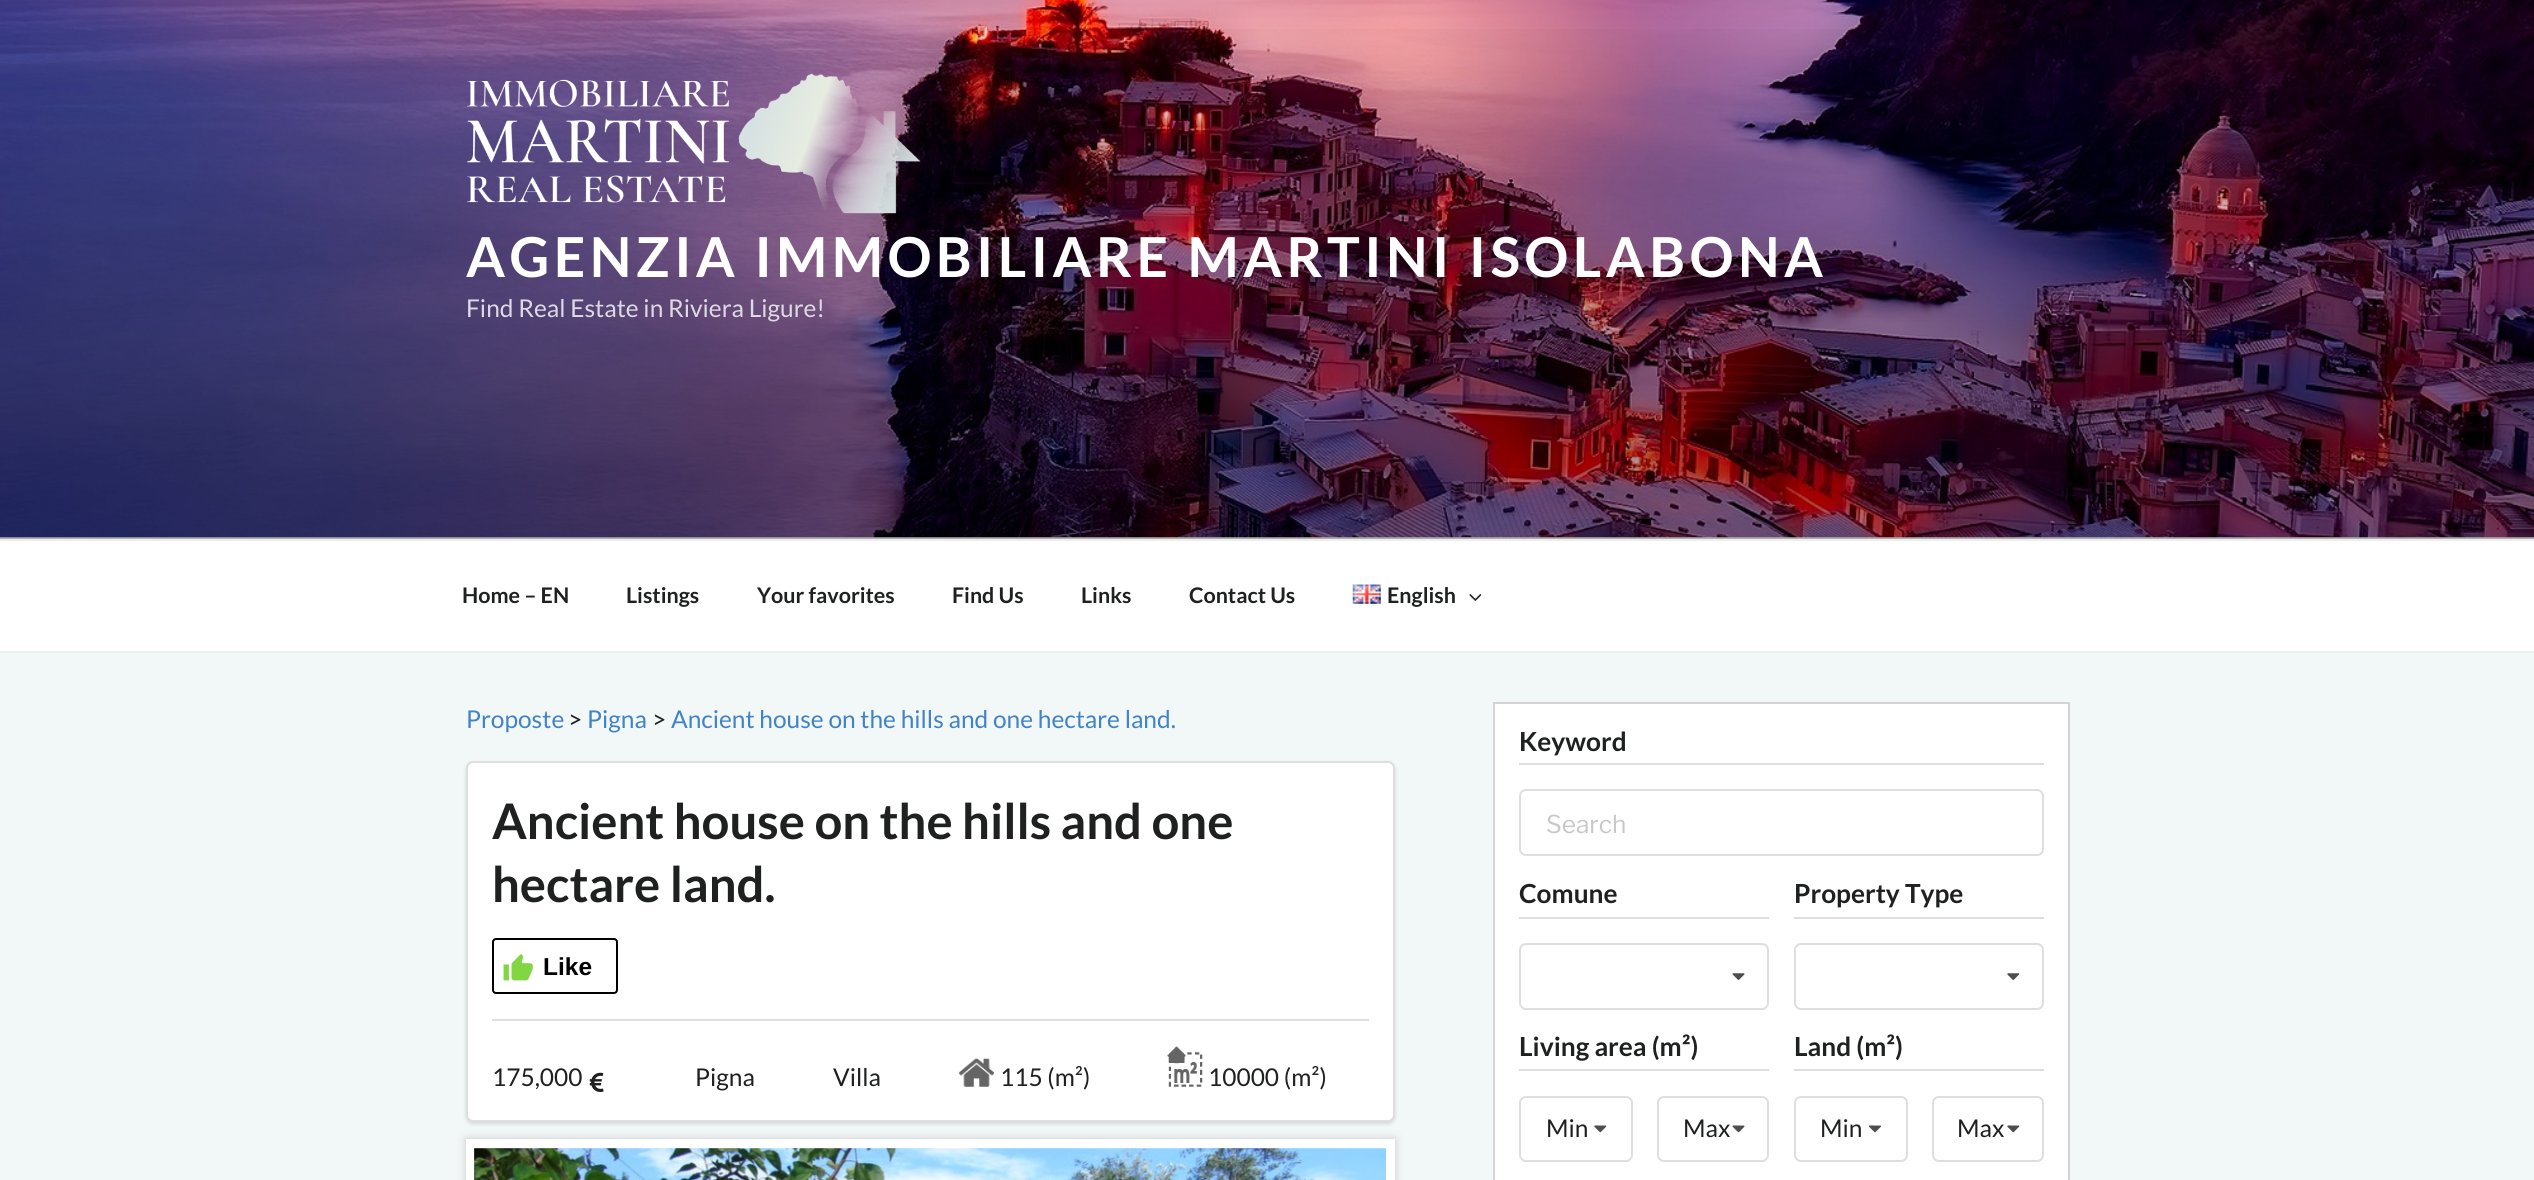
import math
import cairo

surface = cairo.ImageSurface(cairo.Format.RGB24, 2534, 1180)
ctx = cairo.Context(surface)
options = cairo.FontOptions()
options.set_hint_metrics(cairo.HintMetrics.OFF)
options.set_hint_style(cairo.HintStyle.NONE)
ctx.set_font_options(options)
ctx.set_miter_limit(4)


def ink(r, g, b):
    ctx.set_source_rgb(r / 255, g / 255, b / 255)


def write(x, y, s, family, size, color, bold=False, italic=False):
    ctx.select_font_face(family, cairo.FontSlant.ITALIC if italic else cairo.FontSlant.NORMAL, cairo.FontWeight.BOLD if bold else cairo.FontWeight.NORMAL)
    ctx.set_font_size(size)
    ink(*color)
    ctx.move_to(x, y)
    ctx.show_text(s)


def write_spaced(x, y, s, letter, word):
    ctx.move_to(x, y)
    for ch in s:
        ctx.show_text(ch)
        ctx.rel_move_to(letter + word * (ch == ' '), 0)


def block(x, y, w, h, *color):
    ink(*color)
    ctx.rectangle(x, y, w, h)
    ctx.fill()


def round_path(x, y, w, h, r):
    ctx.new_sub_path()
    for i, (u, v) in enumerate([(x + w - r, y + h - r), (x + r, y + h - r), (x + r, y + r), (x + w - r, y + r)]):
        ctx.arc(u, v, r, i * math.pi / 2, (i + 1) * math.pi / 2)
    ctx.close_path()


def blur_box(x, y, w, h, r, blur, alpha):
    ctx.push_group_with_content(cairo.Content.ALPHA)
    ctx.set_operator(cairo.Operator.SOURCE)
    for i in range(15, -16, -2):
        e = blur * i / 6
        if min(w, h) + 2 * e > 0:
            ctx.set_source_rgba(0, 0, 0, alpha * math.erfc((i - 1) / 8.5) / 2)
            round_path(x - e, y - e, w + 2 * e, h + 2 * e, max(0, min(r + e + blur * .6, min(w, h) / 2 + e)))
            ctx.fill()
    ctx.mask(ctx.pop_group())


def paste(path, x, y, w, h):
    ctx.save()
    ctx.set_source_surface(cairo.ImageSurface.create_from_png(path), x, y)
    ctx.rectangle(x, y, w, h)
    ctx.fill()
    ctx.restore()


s1 = dict(family="Lato", size=24.5, color=(222, 218, 227))
s2 = dict(family="Lato", size=21.5, color=(31, 32, 32), bold=True)
s3 = dict(family="Lato", size=24.5, color=(65, 131, 196))
s4 = dict(family="Lato", size=24.5, color=(31, 32, 32))
s5 = dict(family="Lato", size=49, color=(31, 32, 32), bold=True)
s6 = dict(family="Liberation Sans", size=24.5, color=(0, 0, 0), bold=True)
s7 = dict(family="Lato", size=26.25, color=(31, 32, 32), bold=True)
s8 = dict(family="Libre Franklin", size=24.5, color=(199, 199, 199))

ink(250, 250, 250)
ctx.paint()
paste("pic1.png", 0, 0, 2534, 538)
gradient = cairo.LinearGradient(1267, 0, 1267, 539)
gradient.add_color_stop_rgba(0, 0, 0, 0, 0)
gradient.add_color_stop_rgba(0.75, 0, 0, 0, 0.3)
gradient.add_color_stop_rgba(1, 0, 0, 0, 0.3)
ctx.set_source(gradient)
ctx.rectangle(0, 29, 2534, 510)
ctx.fill()
paste("pic2.png", 467, 73, 454, 141)
ctx.select_font_face("Lato", cairo.FontSlant.NORMAL, cairo.FontWeight.BOLD)
ctx.set_font_size(55.1)
ink(255, 255, 255)
write_spaced(466, 277, "AGENZIA IMMOBILIARE MARTINI ISOLABONA", 4.4, 0)
write(466, 317, "Find Real Estate in Riviera Ligure!", **s1)
block(0, 541, 2534, 110, 255, 255, 255)
block(0, 539, 2534, 2, 238, 238, 238)
block(0, 651, 2534, 2, 238, 238, 238)
write(462, 603, "Home – EN", **s2)
write(626, 603, "Listings", **s2)
write(757, 603, "Your favorites", **s2)
write(952, 603, "Find Us", **s2)
write(1081, 603, "Links", **s2)
write(1189, 603, "Contact Us", **s2)
paste("pic3.png", 1352, 584, 29, 20)
write(1387, 603, "English", **s2)
paste("pic4.png", 1469, 594, 13, 7)
block(0, 653, 2534, 527, 242, 247, 247)
write(466, 728, "Proposte", **s3)
write(568, 728, ">", **s4)
write(587, 728, "Pigna", **s3)
write(652, 728, ">", **s4)
write(671, 728, "Ancient house on the hills and one hectare land.", **s3)
ink(34, 36, 38)
blur_box(466, 763, 929, 361, 7, 2, 0.15)
ink(255, 255, 255)
round_path(466, 761, 929, 361, 7)
ctx.fill()
round_path(467, 762, 927, 359, 6)
ctx.set_source_rgba(0.133, 0.141, 0.149, 0.15)
ctx.stroke()
write(492, 839, "Ancient house on the hills and one", **s5)
write(492, 902, "hectare land.", **s5)
round_path(493, 939, 124, 54, 3)
ink(0, 0, 0)
ctx.stroke()
paste("pic5.png", 503, 954, 30, 27)
write(543, 975, "Like", **s6)
block(492, 1019, 877, 1, 222, 222, 222)
block(492, 1020, 877, 1, 225, 225, 225)
write(492, 1086, "175,000", **s4)
paste("pic6.png", 589, 1072, 15, 20)
write(695, 1086, "Pigna", **s4)
write(833, 1086, "Villa", **s4)
paste("pic7.png", 959, 1058, 35, 29)
write(1000, 1086, "115 (m²)", **s4)
paste("pic8.png", 1167, 1046, 36, 41)
write(1208, 1086, "10000 (m²)", **s4)
ink(204, 204, 204)
blur_box(466, 1139, 929, 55, 0, 4.5, 1)
block(466, 1139, 929, 41, 255, 255, 255)
block(474, 1148, 1, 32, 250, 250, 250)
paste("pic9.png", 474, 1148, 912, 32)
ink(255, 255, 255)
ctx.rectangle(1494, 703, 575, 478)
ctx.fill_preserve()
ink(212, 212, 213)
ctx.stroke()
block(1519, 763, 525, 2, 222, 222, 222)
write(1519, 751, "Keyword", **s7)
round_path(1520, 790, 523, 65, 6)
ink(222, 222, 222)
ctx.stroke()
write(1546, 833, "Search", **s8)
block(1519, 917, 250, 2, 222, 222, 222)
write(1519, 903, "Comune", **s7)
round_path(1520, 944, 248, 65, 6)
ink(222, 222, 222)
ctx.stroke()
paste("pic10.png", 1732, 973, 13, 7)
block(1794, 917, 250, 2, 222, 222, 222)
write(1794, 903, "Property Type", **s7)
round_path(1795, 944, 248, 65, 6)
ink(222, 222, 222)
ctx.stroke()
paste("pic11.png", 2007, 973, 13, 7)
block(1519, 1069, 250, 2, 222, 222, 222)
write(1519, 1056, "Living area (m²)", **s7)
round_path(1520, 1097, 112, 64, 6)
ink(222, 222, 222)
ctx.stroke()
write(1546, 1137, "Min", **s4)
paste("pic12.png", 1594, 1125, 13, 8)
round_path(1658, 1097, 110, 64, 6)
ink(222, 222, 222)
ctx.stroke()
write(1683, 1137, "Max", **s4)
paste("pic13.png", 1732, 1125, 13, 8)
block(1794, 1069, 250, 2, 222, 222, 222)
write(1794, 1056, "Land (m²)", **s7)
round_path(1795, 1097, 112, 64, 6)
ink(222, 222, 222)
ctx.stroke()
write(1820, 1137, "Min", **s4)
paste("pic14.png", 1869, 1125, 12, 8)
round_path(1933, 1097, 110, 64, 6)
ink(222, 222, 222)
ctx.stroke()
write(1957, 1137, "Max", **s4)
paste("pic12.png", 2007, 1125, 13, 8)
surface.write_to_png("screenshot.png")
